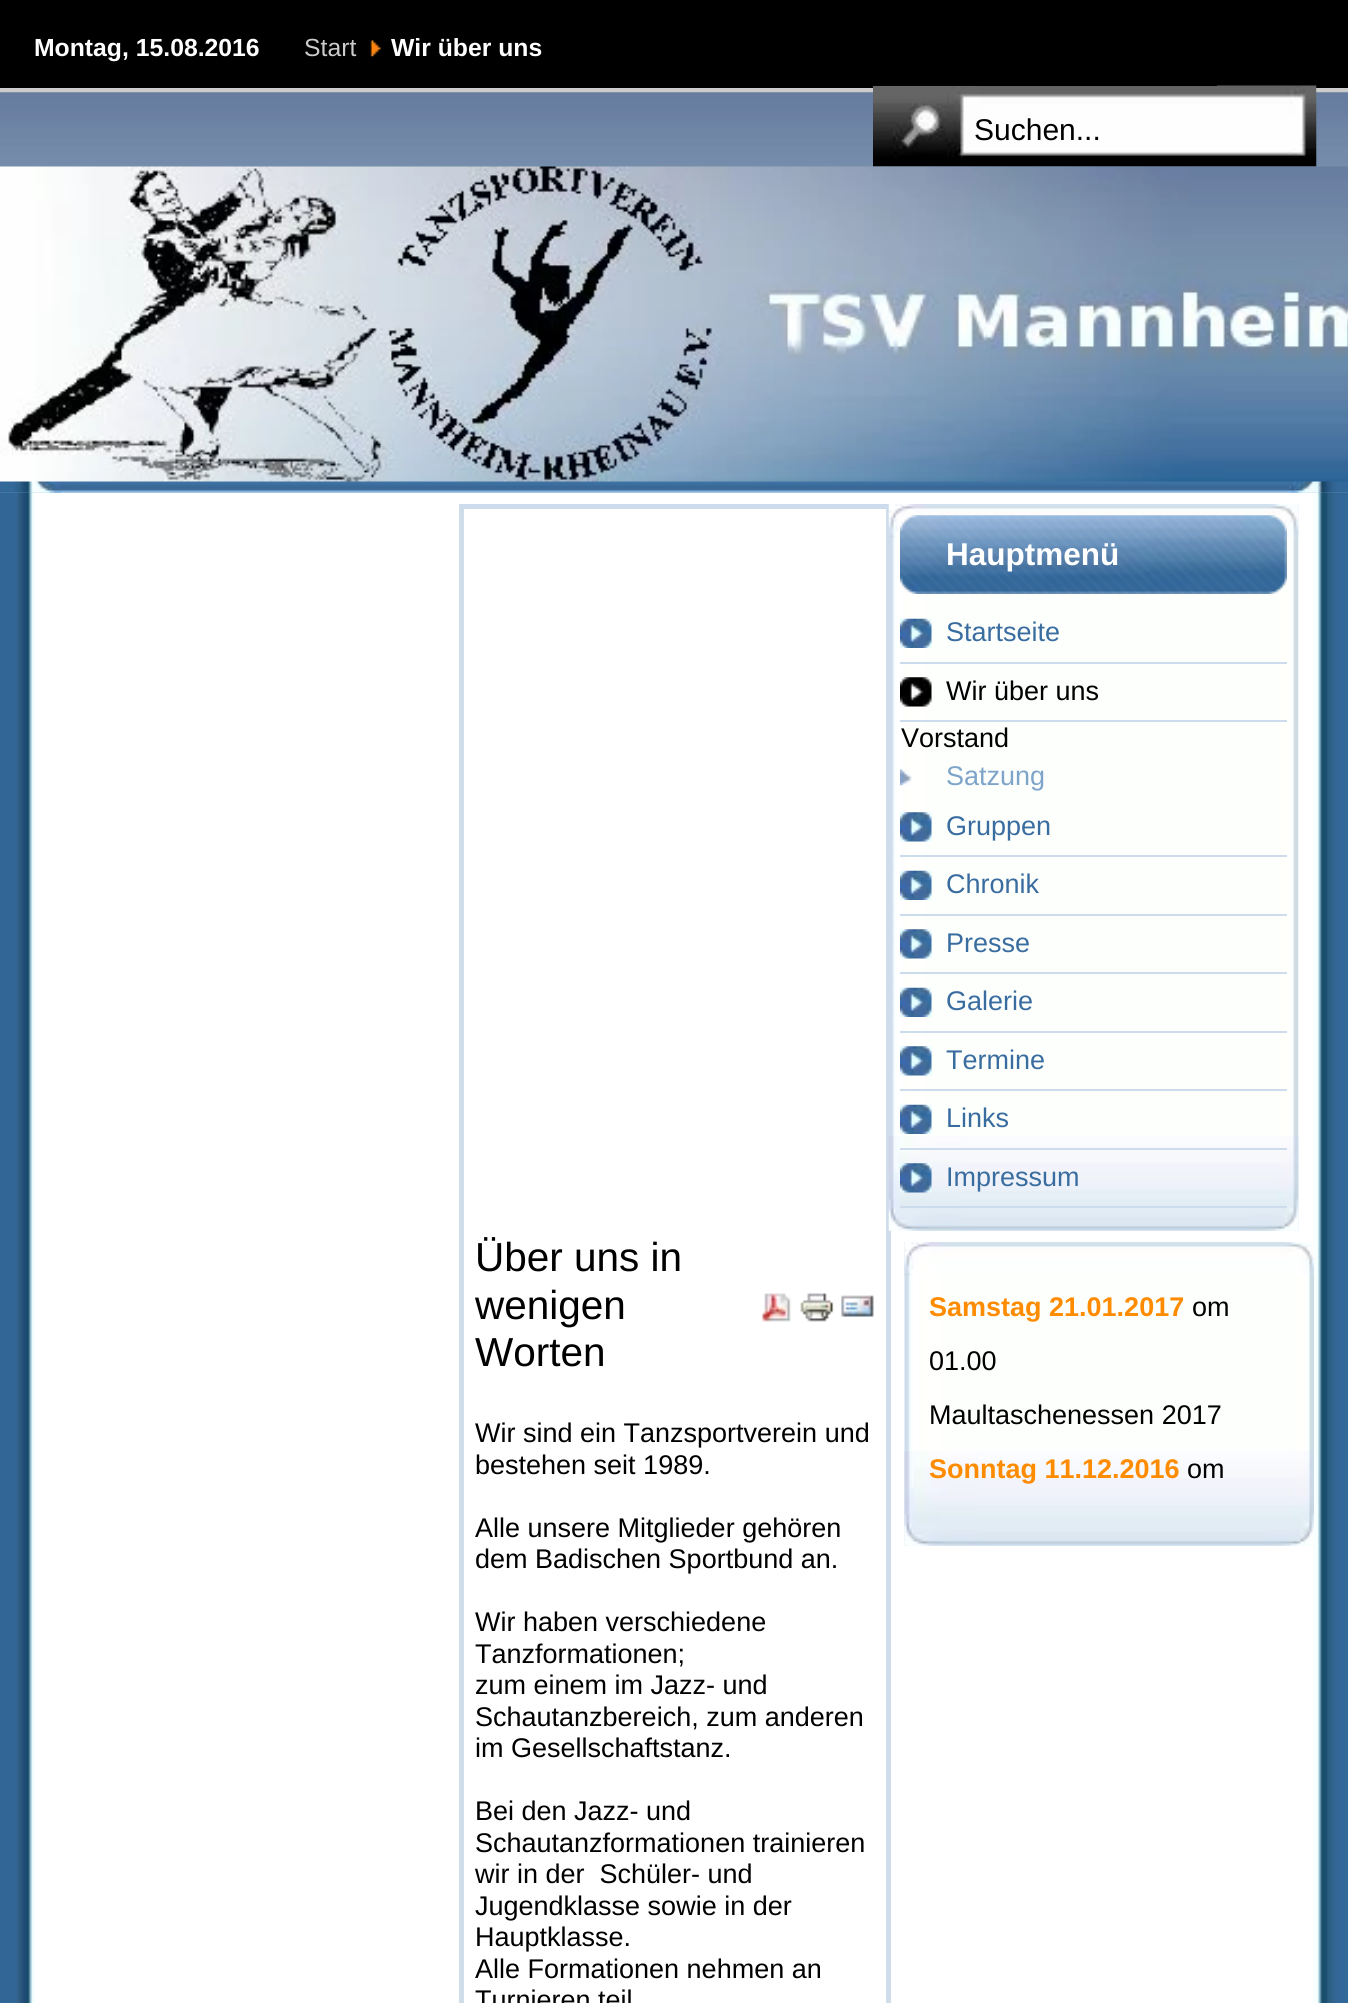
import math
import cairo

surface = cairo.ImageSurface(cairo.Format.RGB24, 1348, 2003)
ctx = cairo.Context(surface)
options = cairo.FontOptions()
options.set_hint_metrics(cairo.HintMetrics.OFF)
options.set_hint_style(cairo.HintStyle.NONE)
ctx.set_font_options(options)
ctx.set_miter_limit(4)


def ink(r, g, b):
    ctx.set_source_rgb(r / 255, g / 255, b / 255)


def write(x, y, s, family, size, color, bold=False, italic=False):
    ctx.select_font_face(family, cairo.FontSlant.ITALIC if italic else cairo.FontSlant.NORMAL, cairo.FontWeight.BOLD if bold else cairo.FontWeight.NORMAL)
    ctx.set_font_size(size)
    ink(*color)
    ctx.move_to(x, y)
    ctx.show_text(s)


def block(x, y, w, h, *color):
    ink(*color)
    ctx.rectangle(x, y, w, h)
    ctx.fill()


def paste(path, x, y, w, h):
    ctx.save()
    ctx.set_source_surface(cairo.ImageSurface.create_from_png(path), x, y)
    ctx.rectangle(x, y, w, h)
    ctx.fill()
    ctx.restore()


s1 = dict(family="Liberation Sans", size=24.75, color=(255, 255, 255), bold=True)
s2 = dict(family="Liberation Sans", size=24.75, color=(204, 204, 204))
s3 = dict(family="Liberation Sans", size=30, color=(0, 0, 0))
s4 = dict(family="Liberation Sans", size=31.5, color=(255, 255, 255), bold=True)
s5 = dict(family="Liberation Sans", size=27, color=(57, 108, 159))
s6 = dict(family="Liberation Sans", size=27, color=(0, 0, 0))
s7 = dict(family="Liberation Sans", size=27, color=(126, 164, 201))
s8 = dict(family="Liberation Sans", size=40.5, color=(0, 0, 0))
s9 = dict(family="Liberation Sans", size=27, color=(255, 140, 0), bold=True)

ink(255, 255, 255)
ctx.paint()
paste("pic1.png", 0, 492, 35, 1511)
paste("pic2.png", 1313, 492, 35, 1511)
block(0, 0, 1348, 88, 0, 0, 0)
block(0, 88, 1348, 5, 204, 204, 204)
write(34, 56, "Montag, 15.08.2016", **s1)
write(304, 56, "Start", **s2)
paste("pic3.png", 370, 40, 11, 17)
write(391, 56, "Wir über uns", **s1)
paste("pic5.png", 0, 92, 1348, 75)
paste("pic4.png", 873, 85, 444, 82)
block(873, 85, 344, 1, 0, 0, 0)
write(974, 140, "Suchen...", **s3)
paste("pic7.png", 0, 481, 1348, 12)
paste("pic8.png", 0, 481, 61, 12)
paste("pic9.png", 1289, 481, 59, 12)
paste("pic6.png", 0, 166, 1348, 316)
paste("pic10.png", 891, 504, 408, 727)
block(886, 509, 5, 1494, 207, 220, 234)
paste("pic11.png", 888, 1136, 411, 95)
block(459, 504, 432, 5, 204, 220, 236)
paste("pic12.png", 888, 504, 411, 34)
paste("pic13.png", 900, 515, 387, 79)
write(946, 565, "Hauptmenü", **s4)
paste("pic14.png", 900, 618, 32, 30)
block(900, 662, 387, 2, 204, 220, 236)
write(946, 641, "Startseite", **s5)
paste("pic15.png", 900, 677, 32, 30)
block(900, 720, 387, 2, 204, 220, 236)
write(946, 700, "Wir über uns", **s6)
write(901, 747, "Vorstand", **s6)
paste("pic16.png", 900, 769, 12, 17)
write(946, 785, "Satzung", **s7)
paste("pic17.png", 900, 812, 32, 30)
block(900, 855, 387, 2, 204, 220, 236)
write(946, 835, "Gruppen", **s5)
paste("pic14.png", 900, 870, 32, 30)
block(900, 914, 387, 2, 204, 220, 236)
write(946, 893, "Chronik", **s5)
paste("pic17.png", 900, 929, 32, 30)
block(900, 972, 387, 2, 204, 220, 236)
write(946, 952, "Presse", **s5)
paste("pic14.png", 900, 987, 32, 30)
block(900, 1031, 387, 2, 204, 220, 236)
write(946, 1010, "Galerie", **s5)
paste("pic17.png", 900, 1046, 32, 30)
block(900, 1089, 387, 2, 204, 220, 236)
write(946, 1069, "Termine", **s5)
paste("pic14.png", 900, 1104, 32, 30)
block(900, 1148, 387, 2, 204, 220, 236)
write(946, 1127, "Links", **s5)
paste("pic18.png", 900, 1163, 32, 30)
block(900, 1206, 387, 2, 204, 220, 236)
write(946, 1186, "Impressum", **s5)
block(459, 509, 5, 1494, 207, 220, 234)
write(475, 1271, "Über uns in", **s8)
write(475, 1319, "wenigen", **s8)
write(475, 1366, "Worten", **s8)
paste("pic19.png", 762, 1293, 29, 29)
paste("pic20.png", 800, 1293, 34, 29)
paste("pic21.png", 841, 1295, 33, 22)
write(475, 1442, "Wir sind ein Tanzsportverein und", **s6)
write(475, 1474, "bestehen seit 1989.", **s6)
write(475, 1537, "Alle unsere Mitglieder gehören", **s6)
write(475, 1568, "dem Badischen Sportbund an.", **s6)
write(475, 1631, "Wir haben verschiedene", **s6)
write(475, 1663, "Tanzformationen;", **s6)
write(475, 1694, "zum einem im Jazz- und", **s6)
write(475, 1726, "Schautanzbereich, zum anderen", **s6)
write(475, 1757, "im Gesellschaftstanz.", **s6)
write(475, 1820, "Bei den Jazz- und", **s6)
write(475, 1852, "Schautanzformationen trainieren", **s6)
write(475, 1883, "wir in der  Schüler- und", **s6)
write(475, 1915, "Jugendklasse sowie in der", **s6)
write(475, 1946, "Hauptklasse.", **s6)
write(475, 1978, "Alle Formationen nehmen an", **s6)
write(475, 2009, "Turnieren teil", **s6)
paste("pic22.png", 904, 1242, 410, 304)
paste("pic23.png", 904, 1451, 410, 95)
paste("pic24.png", 904, 1242, 410, 34)
write(929, 1316, "Samstag 21.01.2017", **s9)
write(1192, 1316, "om", **s6)
write(929, 1370, "01.00", **s6)
write(929, 1424, "Maultaschenessen 2017", **s6)
write(929, 1478, "Sonntag 11.12.2016", **s9)
write(1187, 1478, "om", **s6)
surface.write_to_png("screenshot.png")
